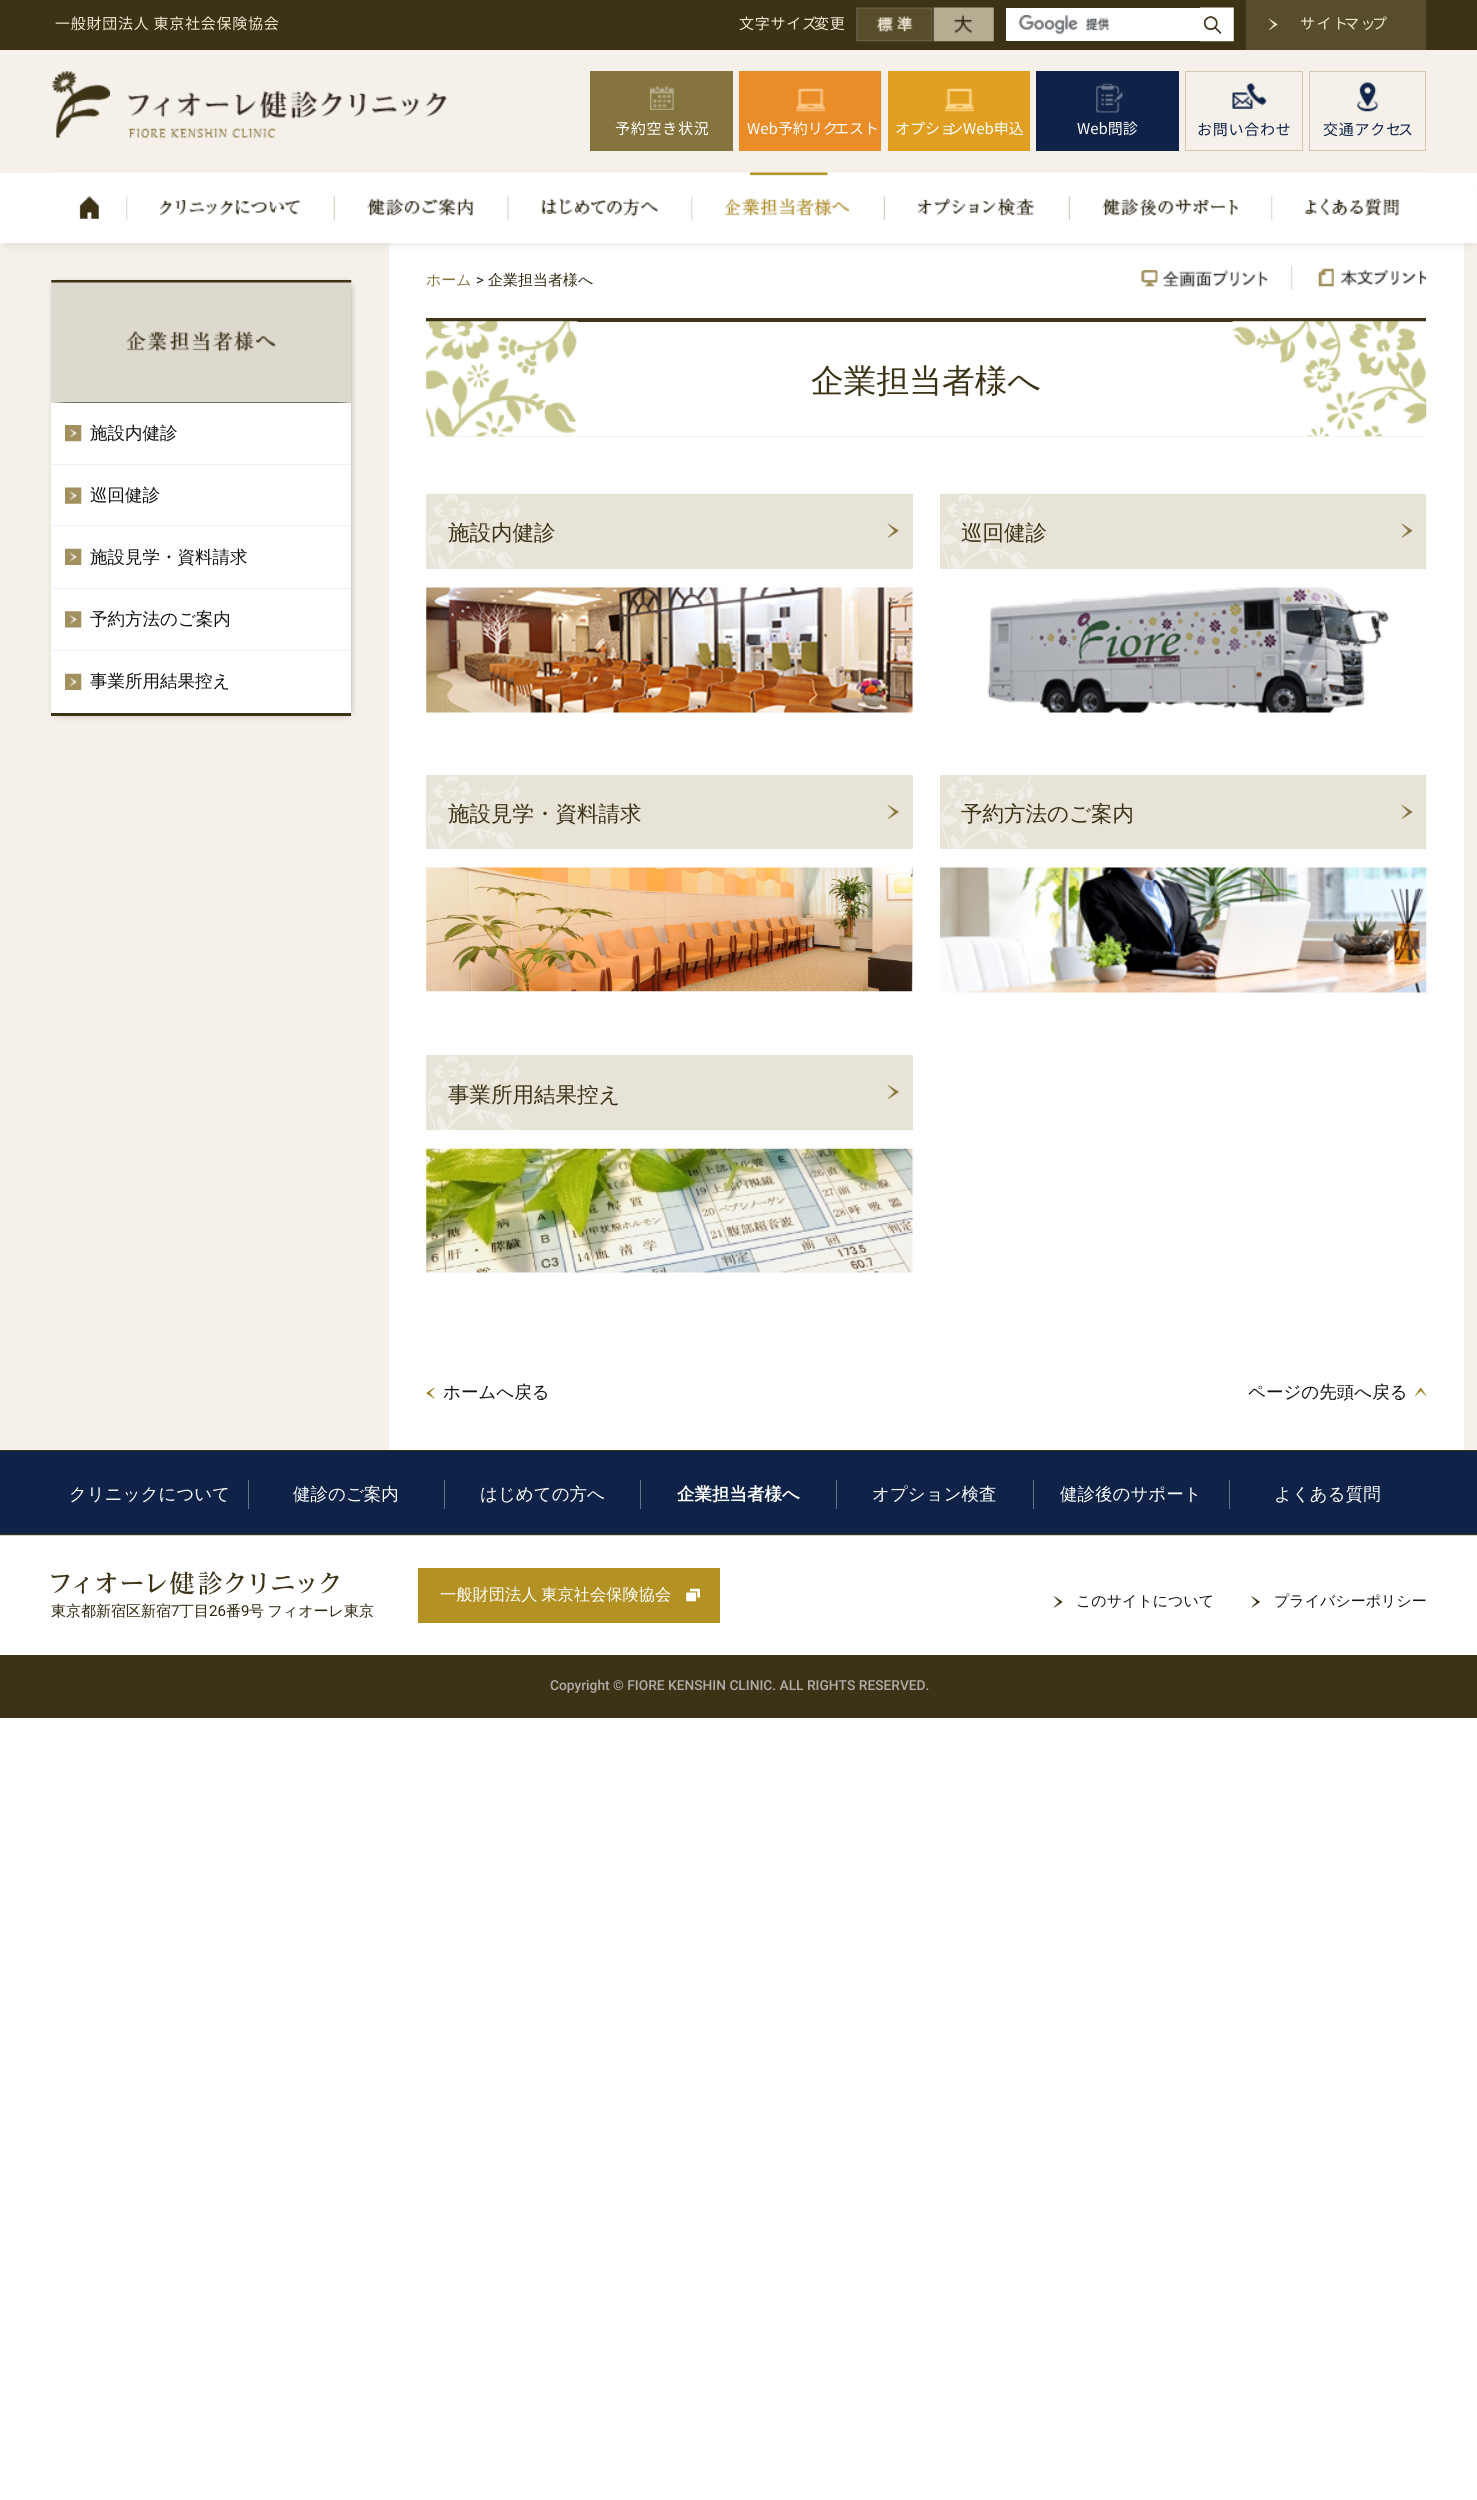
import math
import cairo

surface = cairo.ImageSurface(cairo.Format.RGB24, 1477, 2500)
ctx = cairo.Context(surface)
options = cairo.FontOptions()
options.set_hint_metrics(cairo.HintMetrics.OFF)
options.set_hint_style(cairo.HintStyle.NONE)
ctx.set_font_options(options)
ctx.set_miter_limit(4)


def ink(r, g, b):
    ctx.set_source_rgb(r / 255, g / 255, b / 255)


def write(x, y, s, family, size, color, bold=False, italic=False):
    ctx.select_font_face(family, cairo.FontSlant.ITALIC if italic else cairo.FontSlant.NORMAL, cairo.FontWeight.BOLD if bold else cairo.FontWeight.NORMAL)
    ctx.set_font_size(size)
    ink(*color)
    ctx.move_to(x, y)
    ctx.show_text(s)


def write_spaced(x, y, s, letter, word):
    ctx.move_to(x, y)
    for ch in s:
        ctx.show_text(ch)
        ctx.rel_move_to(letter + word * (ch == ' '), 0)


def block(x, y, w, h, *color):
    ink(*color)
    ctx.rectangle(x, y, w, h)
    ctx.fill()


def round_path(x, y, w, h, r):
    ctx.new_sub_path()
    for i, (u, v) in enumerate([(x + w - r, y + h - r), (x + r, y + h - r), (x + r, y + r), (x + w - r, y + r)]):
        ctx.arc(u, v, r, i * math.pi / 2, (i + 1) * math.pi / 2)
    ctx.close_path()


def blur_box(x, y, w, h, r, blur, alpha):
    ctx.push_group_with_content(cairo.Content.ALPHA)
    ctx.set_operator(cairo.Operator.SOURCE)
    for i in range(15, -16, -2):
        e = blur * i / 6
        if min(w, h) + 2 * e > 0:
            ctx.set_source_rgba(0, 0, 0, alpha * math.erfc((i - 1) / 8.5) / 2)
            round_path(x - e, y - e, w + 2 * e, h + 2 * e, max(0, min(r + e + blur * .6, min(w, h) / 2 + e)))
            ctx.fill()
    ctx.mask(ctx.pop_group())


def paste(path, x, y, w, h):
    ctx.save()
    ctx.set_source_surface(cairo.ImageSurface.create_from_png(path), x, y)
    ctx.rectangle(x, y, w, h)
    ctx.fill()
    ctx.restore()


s1 = dict(family="Noto Sans JP", size=15, color=(255, 255, 255))
s2 = dict(family="WenQuanYi Zen Hei Medium", size=17.5, color=(17, 17, 17))
s3 = dict(family="WenQuanYi Zen Hei Medium", size=15, color=(133, 116, 62))
s4 = dict(family="Roboto", size=15, color=(45, 37, 13))
s5 = dict(family="WenQuanYi Zen Hei Medium", size=15, color=(45, 37, 13))
s6 = dict(family="WenQuanYi Zen Hei Medium", size=32.75, color=(60, 51, 23))
s7 = dict(family="WenQuanYi Zen Hei Medium", size=21.5, color=(60, 51, 23))
s8 = dict(family="WenQuanYi Zen Hei Medium", size=17.5, color=(255, 255, 255))
s9 = dict(family="WenQuanYi Zen Hei", size=17.5, color=(255, 255, 255), bold=True)
s10 = dict(family="WenQuanYi Zen Hei Medium", size=15, color=(17, 17, 17))
s11 = dict(family="Roboto Medium", size=13.75, color=(176, 173, 167))

ink(255, 255, 255)
ctx.paint()
block(0, 50, 1477, 123, 245, 241, 234)
block(0, 0, 1477, 50, 60, 51, 23)
ctx.select_font_face("Noto Sans JP")
ctx.set_font_size(15)
ink(237, 230, 208)
write_spaced(55, 29, "一般財団法人 東京社会保険協会", 0.75, 0)
write_spaced(739, 29, "文字サイズ", 0.75, 0)
write_spaced(814, 29, "変更", 0.75, 0)
paste("pic1.png", 856, 7, 77, 35)
paste("pic2.png", 933, 7, 61, 35)
block(1006, 8, 194, 33, 255, 255, 255)
paste("pic3.png", 1018, 15, 92, 19)
paste("pic4.png", 1200, 7, 34, 35)
block(1246, 0, 180, 50, 88, 77, 42)
paste("pic5.png", 1268, 18, 10, 12)
ink(237, 230, 208)
write_spaced(1300, 29, "サイト", 1.5, 0)
write_spaced(1344, 29, "マッ", 1.5, 0)
write_spaced(1372, 29, "プ", 1.5, 0)
paste("pic6.png", 52, 71, 58, 67)
paste("pic7.png", 128, 91, 319, 47)
block(590, 71, 143, 80, 133, 116, 62)
paste("pic8.png", 650, 86, 24, 24)
ink(255, 255, 255)
write_spaced(615, 134, "予約空き状況", 0.75, 0)
block(739, 71, 142, 80, 234, 141, 40)
paste("pic9.png", 796, 88, 29, 24)
write(747, 134, "Web予約リク", **s1)
write(834, 134, "エスト", **s1)
block(888, 71, 142, 80, 224, 159, 33)
paste("pic10.png", 945, 88, 29, 24)
write(895, 134, "オプショ", **s1)
write(948, 134, "ンWeb申込", **s1)
block(1036, 71, 143, 80, 14, 35, 71)
paste("pic11.png", 1096, 83, 27, 30)
write(1077, 134, "Web問診", **s1)
paste("pic12.png", 1232, 82, 35, 27)
ctx.rectangle(1185.5, 71.5, 117, 79)
ink(210, 198, 176)
ctx.set_line_width(1)
ctx.stroke()
ink(14, 35, 71)
write_spaced(1197, 135, "お問い合わせ", 0.75, 0)
paste("pic13.png", 1357, 82, 21, 30)
ctx.rectangle(1309.5, 71.5, 116, 79)
ink(210, 198, 176)
ctx.stroke()
ink(14, 35, 71)
write_spaced(1323, 135, "交通アクセ", 0.75, 0)
write_spaced(1398, 135, "ス", 0.75, 0)
block(0, 243, 1477, 1207, 245, 241, 234)
block(389, 243, 1075, 1207, 255, 255, 255)
ink(0, 0, 0)
blur_box(6, 188, 1465, 57, 0, 4, 0.1)
block(1, 183, 1475, 60, 255, 255, 255)
paste("pic14.png", 51, 172, 77, 49)
paste("pic15.png", 127, 172, 208, 49)
paste("pic16.png", 335, 172, 174, 49)
paste("pic17.png", 508, 172, 185, 49)
paste("pic18.png", 692, 172, 193, 49)
paste("pic19.png", 885, 172, 185, 49)
paste("pic20.png", 1070, 172, 203, 49)
paste("pic21.png", 1272, 172, 154, 48)
ink(0, 0, 0)
blur_box(59, 288, 287, 422, 0, 5, 1)
block(51, 713, 300, 3, 60, 51, 23)
paste("pic22.png", 51, 280, 301, 123)
block(51, 464, 300, 1, 242, 240, 234)
block(51, 403, 300, 61, 255, 255, 255)
paste("pic23.png", 65, 425, 17, 17)
write(90, 439, "施設内健診", **s2)
block(51, 525, 300, 1, 242, 240, 234)
block(51, 465, 300, 60, 255, 255, 255)
paste("pic24.png", 65, 487, 17, 17)
write(90, 501, "巡回健診", **s2)
block(51, 588, 300, 1, 242, 240, 234)
block(51, 526, 300, 62, 255, 255, 255)
paste("pic25.png", 65, 548, 17, 17)
write(90, 563, "施設見学・資料請求", **s2)
block(51, 650, 300, 1, 242, 240, 234)
block(51, 589, 300, 61, 255, 255, 255)
paste("pic26.png", 65, 611, 17, 17)
write(90, 625, "予約方法のご案内", **s2)
block(51, 651, 300, 62, 255, 255, 255)
paste("pic25.png", 65, 673, 17, 17)
write(90, 687, "事業所用結果控え", **s2)
write(426, 285, "ホーム", **s3)
write(476, 285, ">", **s4)
write(488, 285, "企業担当者様へ", **s5)
paste("pic27.png", 1141, 265, 152, 25)
paste("pic28.png", 1318, 268, 109, 19)
block(426, 318, 1000, 4, 60, 51, 23)
block(426, 436, 1000, 1, 242, 240, 234)
paste("pic29.png", 426, 321, 1001, 116)
write(811, 392, "企業担当者様へ", **s6)
block(426, 494, 487, 75, 232, 227, 215)
paste("pic30.png", 426, 493, 94, 76)
paste("pic31.png", 887, 523, 12, 15)
write(448, 540, "施設内健診", **s7)
paste("pic32.png", 426, 587, 487, 126)
block(940, 494, 486, 75, 232, 227, 215)
paste("pic33.png", 940, 493, 94, 76)
paste("pic34.png", 1401, 523, 12, 15)
write(961, 540, "巡回健診", **s7)
paste("pic35.png", 987, 587, 402, 126)
block(426, 775, 487, 74, 232, 227, 215)
paste("pic36.png", 427, 775, 93, 74)
paste("pic37.png", 887, 805, 12, 14)
write(448, 821, "施設見学・資料請求", **s7)
paste("pic38.png", 426, 867, 487, 125)
block(940, 775, 486, 74, 232, 227, 215)
paste("pic39.png", 941, 775, 93, 74)
paste("pic40.png", 1401, 805, 12, 14)
write(961, 821, "予約方法のご案内", **s7)
paste("pic41.png", 940, 867, 487, 126)
block(426, 1055, 487, 75, 232, 227, 215)
paste("pic42.png", 427, 1055, 93, 75)
paste("pic37.png", 887, 1085, 12, 14)
write(448, 1102, "事業所用結果控え", **s7)
paste("pic43.png", 426, 1148, 487, 125)
paste("pic44.png", 426, 1387, 9, 12)
write(443, 1398, "ホームへ戻る", **s2)
write(1248, 1398, "ページの先頭へ戻る", **s2)
paste("pic45.png", 1415, 1387, 12, 10)
block(0, 1451, 1477, 83, 14, 35, 71)
block(0, 1450, 1477, 1, 60, 51, 23)
block(0, 1534, 1477, 1, 60, 51, 23)
write(69, 1500, "クリニックについて", **s8)
block(248, 1480, 1, 29, 101, 114, 137)
write(293, 1500, "健診のご案内", **s8)
block(444, 1480, 1, 29, 101, 114, 137)
write(480, 1500, "はじめての方へ", **s8)
block(640, 1480, 1, 29, 101, 114, 137)
write(677, 1500, "企業担当者様へ", **s9)
block(836, 1480, 1, 29, 101, 114, 137)
write(872, 1500, "オプション検査", **s8)
block(1033, 1480, 1, 29, 101, 114, 137)
write(1060, 1500, "健診後のサポート", **s8)
block(1229, 1480, 1, 29, 101, 114, 137)
write(1274, 1500, "よくある質問", **s8)
block(0, 1535, 1477, 1, 209, 209, 209)
block(418, 1568, 302, 55, 179, 145, 35)
paste("pic46.png", 686, 1588, 14, 14)
ctx.set_font_size(16.25)
ink(255, 255, 255)
write_spaced(440, 1600, "一般財団法人 東京社会保険協会", 0, -1)
paste("pic47.png", 1053, 1596, 10, 12)
write(1076, 1606, "このサイトについて", **s10)
paste("pic48.png", 1251, 1596, 9, 12)
write(1274, 1606, "プライバシーポリシー", **s10)
paste("pic49.png", 51, 1571, 288, 24)
write(51, 1616, "東京都新宿区新宿", **s5)
write(171, 1616, "7", **s4)
write(179, 1616, "丁目", **s5)
write(209, 1616, "26", **s4)
write(226, 1616, "番", **s5)
write(241, 1616, "9", **s4)
ctx.select_font_face("WenQuanYi Zen Hei Medium")
write_spaced(249, 1616, "号 フィオーレ東京", 0, -1)
block(0, 1655, 1477, 63, 60, 51, 23)
write(550, 1690, "Copyright © FIORE KENSHIN CLINIC. ALL RIGHTS RESERVED.", **s11)
surface.write_to_png("screenshot.png")
